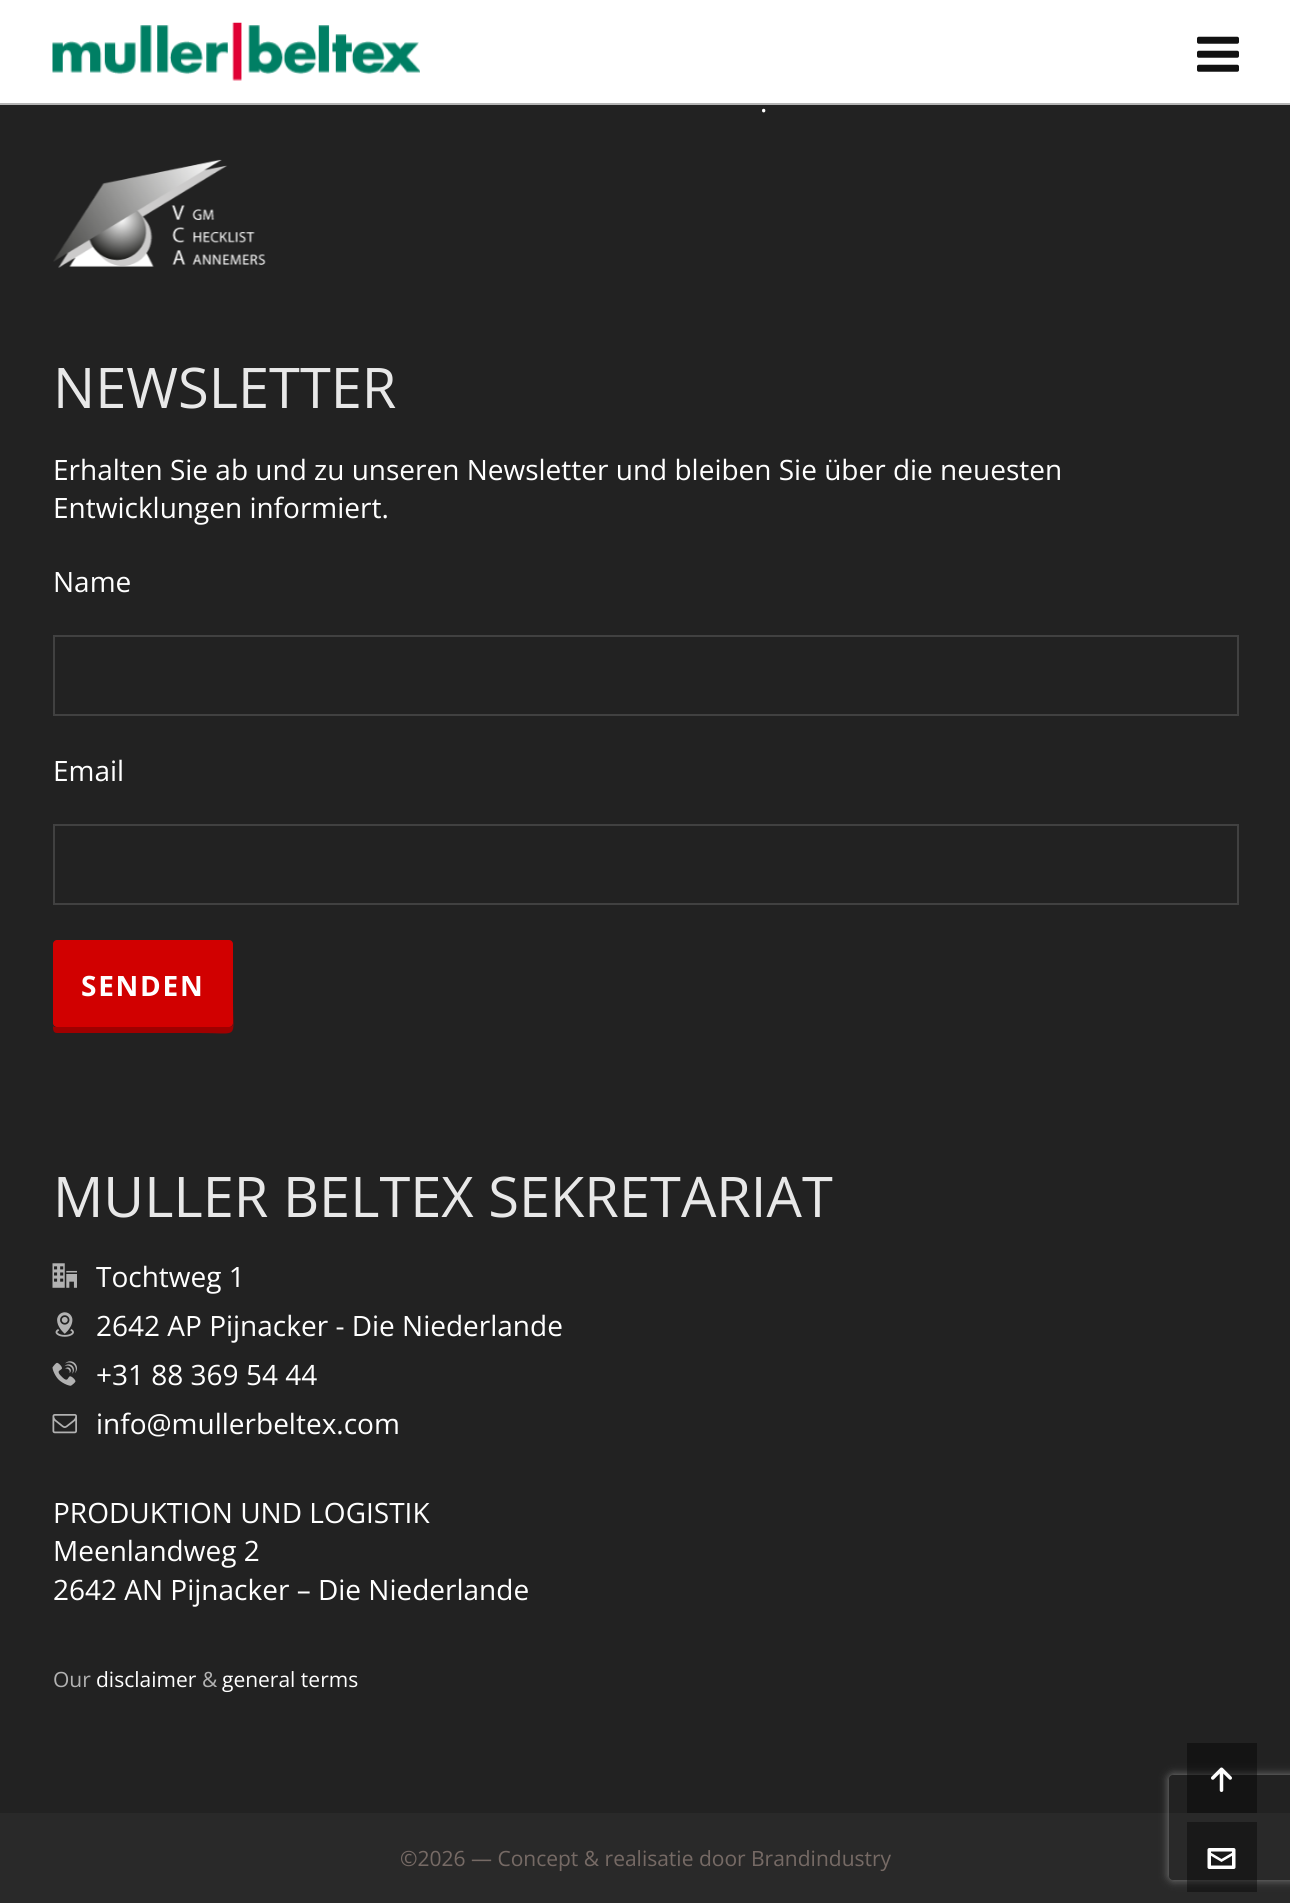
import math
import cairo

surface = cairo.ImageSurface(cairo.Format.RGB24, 1290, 1903)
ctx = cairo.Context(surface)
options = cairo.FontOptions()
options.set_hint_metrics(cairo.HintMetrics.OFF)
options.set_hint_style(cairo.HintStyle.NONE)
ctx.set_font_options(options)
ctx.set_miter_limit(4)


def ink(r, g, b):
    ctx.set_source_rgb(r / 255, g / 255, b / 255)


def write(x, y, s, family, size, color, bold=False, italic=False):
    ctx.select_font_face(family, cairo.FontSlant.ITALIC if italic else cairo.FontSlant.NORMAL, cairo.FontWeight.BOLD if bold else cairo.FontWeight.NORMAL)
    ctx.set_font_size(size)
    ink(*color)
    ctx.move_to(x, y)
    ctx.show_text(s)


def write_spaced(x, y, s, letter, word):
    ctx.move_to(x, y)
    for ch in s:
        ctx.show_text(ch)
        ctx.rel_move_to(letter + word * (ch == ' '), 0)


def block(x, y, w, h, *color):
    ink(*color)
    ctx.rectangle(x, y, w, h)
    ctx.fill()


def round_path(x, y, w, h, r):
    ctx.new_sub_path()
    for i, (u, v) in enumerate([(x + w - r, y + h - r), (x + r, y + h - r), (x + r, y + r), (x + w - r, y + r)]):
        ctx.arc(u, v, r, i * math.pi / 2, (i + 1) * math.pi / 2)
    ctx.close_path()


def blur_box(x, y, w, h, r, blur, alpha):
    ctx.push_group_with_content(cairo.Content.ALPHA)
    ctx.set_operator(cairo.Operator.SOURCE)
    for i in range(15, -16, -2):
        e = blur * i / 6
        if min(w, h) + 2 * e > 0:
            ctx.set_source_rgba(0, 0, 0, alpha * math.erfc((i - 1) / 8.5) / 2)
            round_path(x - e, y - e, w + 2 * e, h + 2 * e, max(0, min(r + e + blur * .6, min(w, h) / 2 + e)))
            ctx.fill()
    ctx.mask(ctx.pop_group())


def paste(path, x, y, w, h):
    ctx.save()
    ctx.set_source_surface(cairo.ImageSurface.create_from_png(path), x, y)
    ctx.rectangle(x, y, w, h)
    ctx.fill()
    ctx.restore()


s1 = dict(family="Open Sans", size=28, color=(255, 255, 255))
s2 = dict(family="Open Sans", size=56, color=(232, 232, 232))
s3 = dict(family="Open Sans", size=21, color=(178, 178, 178))
s4 = dict(family="Open Sans", size=21, color=(255, 255, 255))
s5 = dict(family="Open Sans", size=21, color=(118, 106, 101))

ink(34, 34, 34)
ctx.paint()
block(0, 0, 1290, 103, 255, 255, 255)
block(0, 103, 1290, 2, 181, 181, 181)
paste("pic1.png", 52, 22, 368, 59)
paste("pic2.png", 1197, 36, 42, 36)
write(760, 112, ".", **s1)
paste("pic3.png", 53, 159, 213, 109)
write(53, 408, "NEWSLETTER", **s2)
write(53, 480, "Erhalten Sie ab und zu unseren Newsletter und bleiben Sie über die neuesten", **s1)
write(53, 518, "Entwicklungen informiert.", **s1)
write(53, 592, "Name", **s1)
ctx.rectangle(54, 636, 1184, 79)
ink(65, 65, 65)
ctx.stroke()
write(53, 781, "Email", **s1)
ctx.rectangle(54, 825, 1184, 79)
ink(65, 65, 65)
ctx.stroke()
ink(159, 0, 0)
ctx.new_path()
ctx.move_to(53, 1026)
ctx.curve_to(53, 1029, 53, 1033, 57, 1033)
ctx.line_to(200, 1033)
ctx.curve_to(240, 1033, 233, 1040, 233, 1002)
ctx.line_to(233, 948)
ctx.line_to(233, 1024)
ctx.curve_to(233, 1026, 231, 1027, 229, 1027)
ctx.line_to(56, 1027)
ctx.curve_to(55, 1027, 54, 1027, 53, 1026)
ctx.close_path()
ctx.fill()
ink(209, 0, 0)
round_path(53, 940, 180, 87, 4)
ctx.fill()
ctx.select_font_face("Open Sans", cairo.FontSlant.NORMAL, cairo.FontWeight.BOLD)
ink(255, 255, 255)
write_spaced(81, 996, "SENDEN", 1.75, 0)
write(53, 1217, "MULLER BELTEX SEKRETARIAT", **s2)
paste("pic4.png", 52, 1263, 25, 25)
write(96, 1287, "Tochtweg 1", **s1)
paste("pic5.png", 55, 1312, 19, 25)
write(96, 1336, "2642 AP Pijnacker - Die Niederlande", **s1)
paste("pic6.png", 52, 1361, 25, 25)
write(96, 1385, "+31 88 369 54 44", **s1)
paste("pic7.png", 52, 1414, 25, 20)
write(96, 1434, "info@mullerbeltex.com", **s1)
write(53, 1523, "PRODUKTION UND LOGISTIK", **s1)
write(53, 1561, "Meenlandweg 2", **s1)
write(53, 1600, "2642 AN Pijnacker – Die Niederlande", **s1)
write(53, 1687, "Our", **s3)
write(96, 1687, "disclaimer", **s4)
write(202, 1687, "&", **s3)
write(222, 1687, "general terms", **s4)
block(0, 1813, 1290, 90, 41, 41, 41)
ctx.save()
ctx.set_fill_rule(cairo.FillRule.EVEN_ODD)
ctx.new_path()
ctx.move_to(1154, 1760)
ctx.line_to(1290, 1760)
ctx.line_to(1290, 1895)
ctx.line_to(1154, 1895)
ctx.close_path()
ctx.move_to(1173, 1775)
ctx.line_to(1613, 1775)
ctx.curve_to(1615, 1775, 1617, 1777, 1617, 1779)
ctx.line_to(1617, 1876)
ctx.curve_to(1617, 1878, 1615, 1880, 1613, 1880)
ctx.line_to(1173, 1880)
ctx.curve_to(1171, 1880, 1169, 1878, 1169, 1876)
ctx.line_to(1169, 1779)
ctx.curve_to(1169, 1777, 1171, 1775, 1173, 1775)
ctx.close_path()
ctx.clip()
ink(128, 128, 128)
blur_box(1169, 1775, 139, 105, 4, 4.5, 1)
ctx.restore()
ctx.set_source_rgba(0, 0, 0, 0.4)
ctx.rectangle(1187, 1743, 70, 70)
ctx.fill()
paste("pic8.png", 1211, 1767, 21, 25)
write(400, 1866, "©2026 — Concept & realisatie door Brandindustry", **s5)
ctx.set_source_rgba(0, 0, 0, 0.4)
ctx.rectangle(1187, 1822, 70, 70)
ctx.fill()
paste("pic9.png", 1207, 1848, 29, 21)
surface.write_to_png("screenshot.png")
